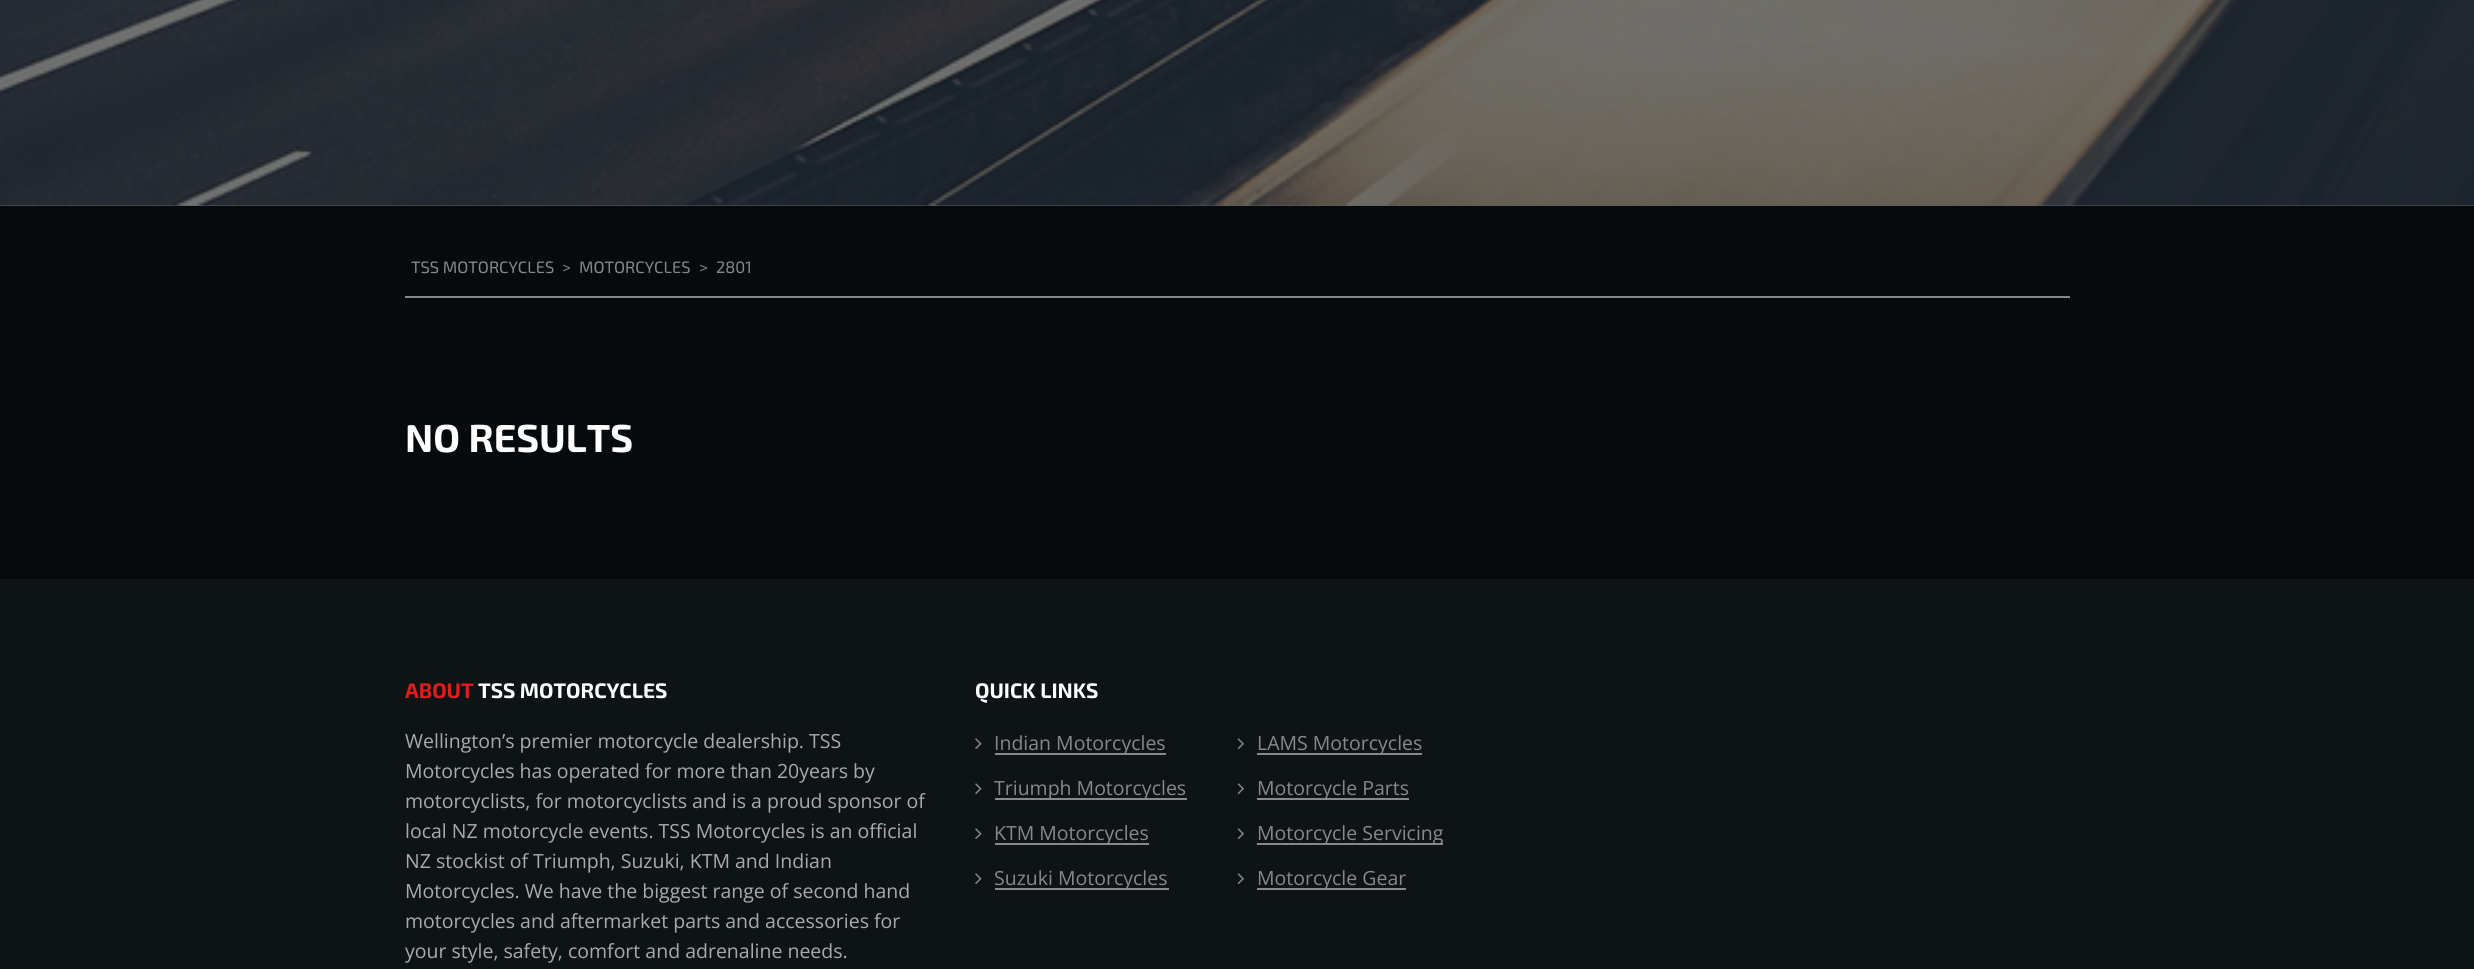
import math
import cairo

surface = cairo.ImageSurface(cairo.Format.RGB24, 2474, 969)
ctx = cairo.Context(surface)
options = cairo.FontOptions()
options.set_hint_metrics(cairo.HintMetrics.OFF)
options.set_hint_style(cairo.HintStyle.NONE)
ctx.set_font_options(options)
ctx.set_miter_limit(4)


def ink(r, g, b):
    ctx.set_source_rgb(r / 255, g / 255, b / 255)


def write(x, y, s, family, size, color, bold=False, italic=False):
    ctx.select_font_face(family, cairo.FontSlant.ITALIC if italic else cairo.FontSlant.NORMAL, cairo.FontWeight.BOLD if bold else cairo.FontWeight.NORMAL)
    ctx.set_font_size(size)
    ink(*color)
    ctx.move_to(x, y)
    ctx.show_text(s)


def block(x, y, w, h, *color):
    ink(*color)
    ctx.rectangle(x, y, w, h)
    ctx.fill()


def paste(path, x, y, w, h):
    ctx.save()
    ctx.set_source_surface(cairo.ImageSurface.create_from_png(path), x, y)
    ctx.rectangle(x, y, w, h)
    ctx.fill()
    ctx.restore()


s1 = dict(family="Exo 2", size=16.5, color=(136, 136, 136))
s2 = dict(family="Exo 2", size=39, color=(255, 255, 255), bold=True)
s3 = dict(family="Exo 2", size=21, color=(223, 29, 29), bold=True)
s4 = dict(family="Exo 2", size=21, color=(255, 255, 255), bold=True)
s5 = dict(family="Open Sans", size=19.5, color=(170, 170, 170))
s6 = dict(family="Open Sans", size=19.5, color=(136, 136, 136))

ink(14, 19, 21)
ctx.paint()
block(0, 206, 2474, 373, 7, 10, 12)
block(0, 205, 2474, 1, 89, 99, 107)
paste("pic1.png", 0, 0, 2474, 206)
block(405, 296, 1665, 2, 131, 133, 134)
write(411, 273, "TSS MOTORCYCLES", **s1)
write(562, 273, ">", **s1)
write(579, 273, "MOTORCYCLES", **s1)
write(699, 273, ">", **s1)
write(716, 273, "2801", **s1)
write(405, 452, "NO RESULTS", **s2)
write(405, 698, "ABOUT", **s3)
write(478, 698, "TSS MOTORCYCLES", **s4)
write(405, 748, "Wellington’s premier motorcycle dealership. TSS", **s5)
write(405, 778, "Motorcycles has operated for more than 20years by", **s5)
write(405, 808, "motorcyclists, for motorcyclists and is a proud sponsor of", **s5)
write(405, 838, "local NZ motorcycle events. TSS Motorcycles is an official", **s5)
write(405, 868, "NZ stockist of Triumph, Suzuki, KTM and Indian", **s5)
write(405, 898, "Motorcycles. We have the biggest range of second hand", **s5)
write(405, 928, "motorcycles and aftermarket parts and accessories for", **s5)
write(405, 958, "your style, safety, comfort and adrenaline needs.", **s5)
write(975, 698, "QUICK LINKS", **s4)
block(995, 753, 171, 2, 135, 137, 138)
paste("pic2.png", 975, 738, 7, 11)
write(994, 750, "Indian Motorcycles", **s6)
block(1257, 753, 165, 2, 135, 137, 138)
paste("pic3.png", 1237, 738, 7, 12)
write(1257, 750, "LAMS Motorcycles", **s6)
block(995, 798, 192, 2, 135, 137, 138)
paste("pic2.png", 975, 783, 7, 11)
write(994, 795, "Triumph Motorcycles", **s6)
block(1257, 798, 152, 2, 135, 137, 138)
paste("pic3.png", 1237, 783, 7, 12)
write(1257, 795, "Motorcycle Parts", **s6)
block(995, 843, 154, 2, 135, 137, 138)
paste("pic2.png", 975, 828, 7, 11)
write(994, 840, "KTM Motorcycles", **s6)
block(1257, 843, 186, 2, 135, 137, 138)
paste("pic3.png", 1237, 828, 7, 12)
write(1257, 840, "Motorcycle Servicing", **s6)
block(995, 888, 174, 2, 135, 137, 138)
paste("pic2.png", 975, 873, 7, 11)
write(994, 885, "Suzuki Motorcycles", **s6)
block(1257, 888, 149, 2, 135, 137, 138)
paste("pic3.png", 1237, 873, 7, 12)
write(1257, 885, "Motorcycle Gear", **s6)
surface.write_to_png("screenshot.png")
